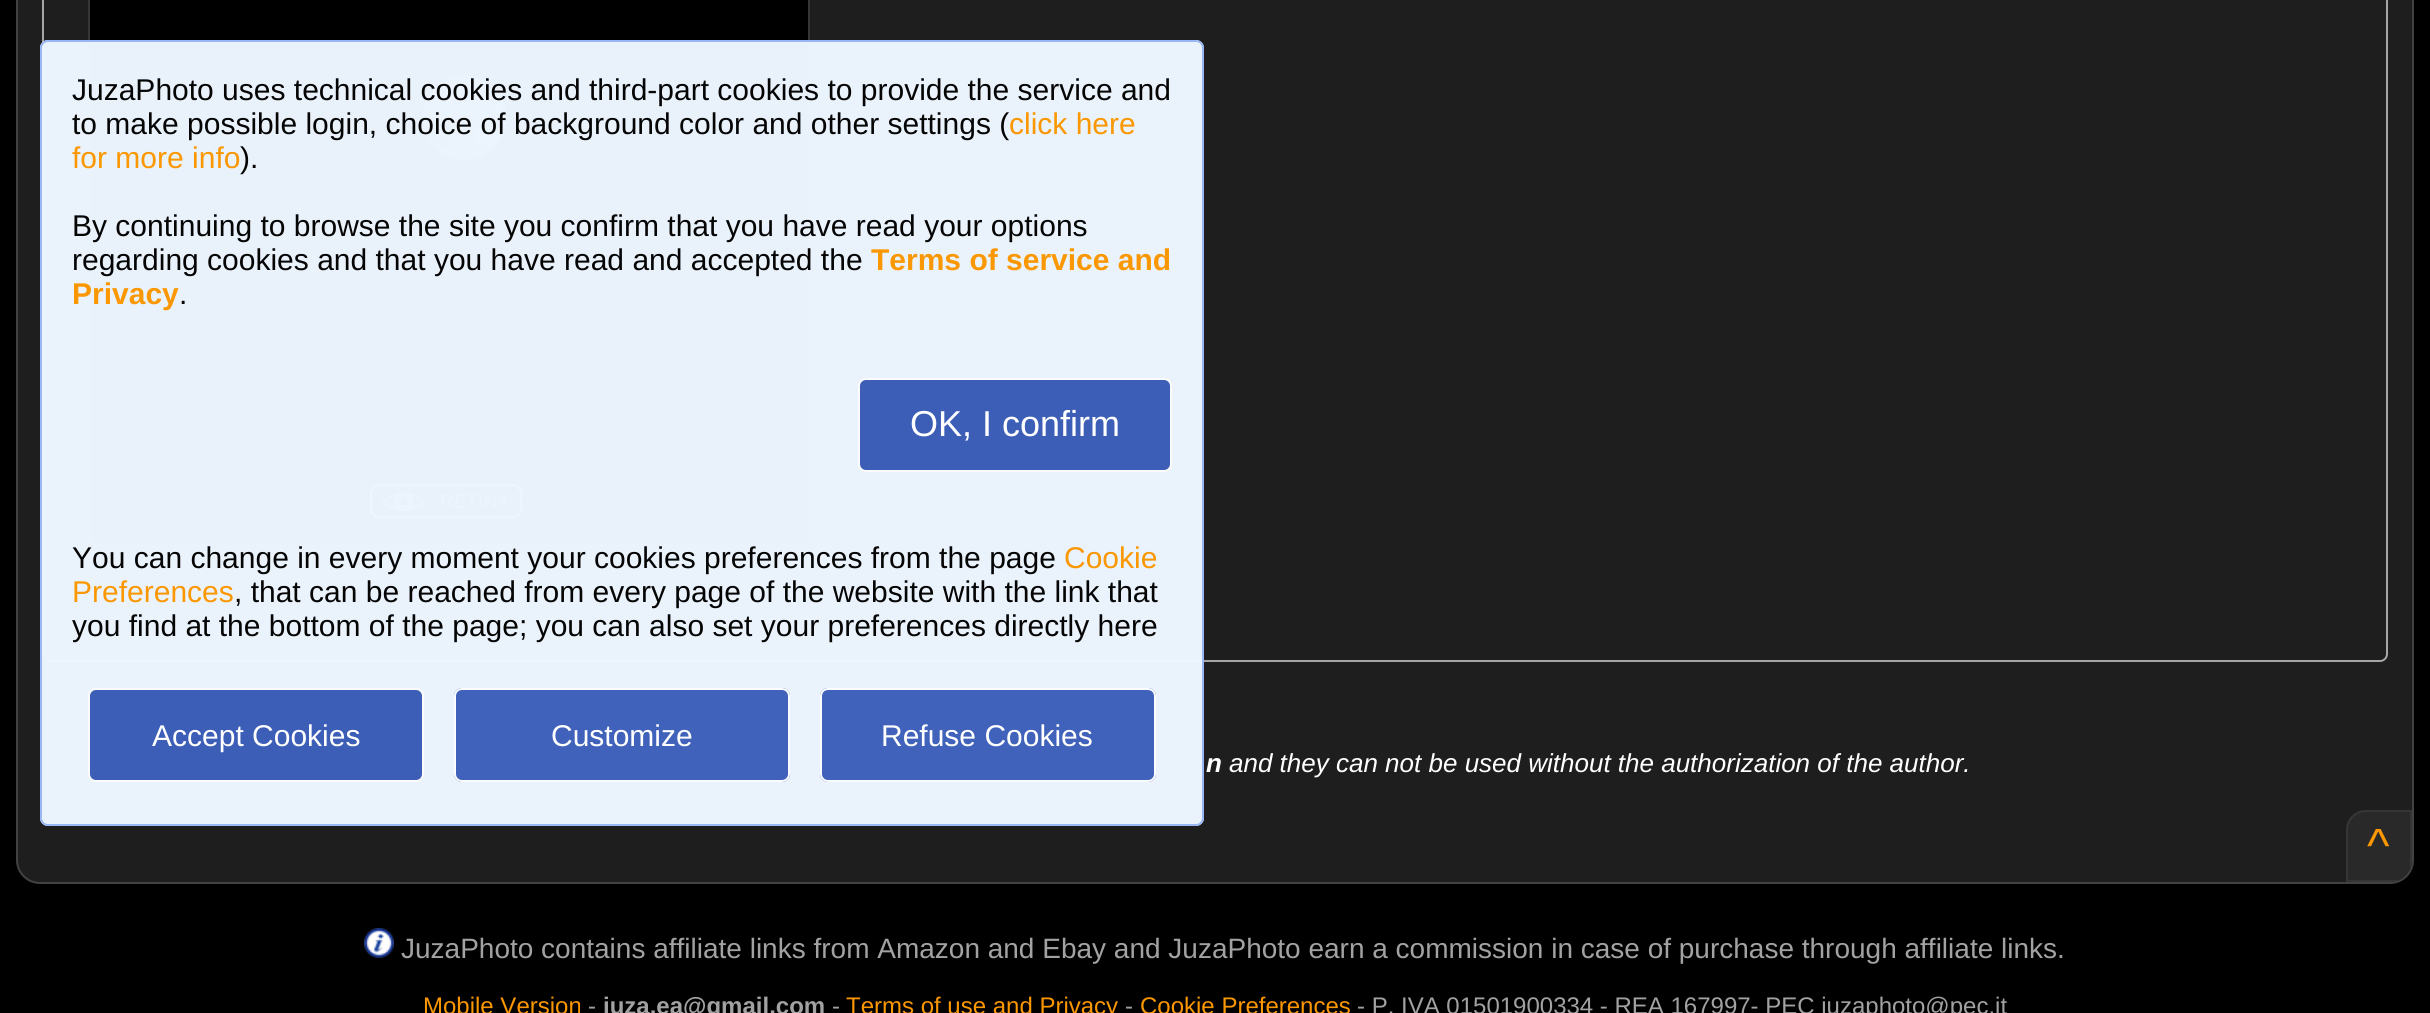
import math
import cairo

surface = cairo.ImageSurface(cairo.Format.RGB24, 2430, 1013)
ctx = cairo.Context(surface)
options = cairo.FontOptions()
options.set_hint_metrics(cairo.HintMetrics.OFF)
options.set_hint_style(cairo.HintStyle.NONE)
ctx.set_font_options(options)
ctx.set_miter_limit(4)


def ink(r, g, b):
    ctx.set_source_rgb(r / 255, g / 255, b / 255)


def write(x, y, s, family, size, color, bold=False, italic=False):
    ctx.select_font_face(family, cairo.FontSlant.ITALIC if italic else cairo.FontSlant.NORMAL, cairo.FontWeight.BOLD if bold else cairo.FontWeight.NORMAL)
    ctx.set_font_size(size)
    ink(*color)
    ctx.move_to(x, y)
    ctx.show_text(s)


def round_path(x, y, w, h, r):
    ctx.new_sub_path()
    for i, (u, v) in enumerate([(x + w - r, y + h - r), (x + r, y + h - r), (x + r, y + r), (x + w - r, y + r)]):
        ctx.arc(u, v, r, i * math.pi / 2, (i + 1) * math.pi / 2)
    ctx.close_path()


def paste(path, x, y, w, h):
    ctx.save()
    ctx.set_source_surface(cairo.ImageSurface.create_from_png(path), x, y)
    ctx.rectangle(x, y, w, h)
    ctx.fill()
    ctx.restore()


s1 = dict(family="Liberation Sans", size=30, color=(5, 5, 5))
s2 = dict(family="Liberation Sans", size=30, color=(251, 151, 0))
s3 = dict(family="Liberation Sans", size=30, color=(251, 151, 0), bold=True)
s4 = dict(family="Liberation Sans", size=36, color=(255, 255, 255))
s5 = dict(family="Liberation Sans", size=30, color=(255, 255, 255))
s6 = dict(family="Liberation Sans", size=26, color=(255, 255, 255), bold=True, italic=True)
s7 = dict(family="Liberation Sans", size=26, color=(255, 255, 255), italic=True)
s8 = dict(family="Liberation Sans", size=48, color=(251, 151, 0))
s9 = dict(family="Liberation Sans", size=28, color=(162, 162, 162))
s10 = dict(family="Liberation Sans", size=24, color=(251, 151, 0))
s11 = dict(family="Liberation Sans", size=24, color=(162, 162, 162))
s12 = dict(family="Liberation Sans", size=24, color=(162, 162, 162), bold=True)

ink(0, 0, 0)
ctx.paint()
ink(30, 30, 30)
round_path(17, -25, 2396, 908, 23)
ctx.fill_preserve()
ink(66, 66, 66)
ctx.stroke()
round_path(43, -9, 2344, 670, 7)
ink(166, 166, 166)
ctx.stroke()
ink(17, 17, 17)
round_path(89, -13, 720, 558, 11)
ctx.fill_preserve()
ink(53, 55, 53)
ctx.stroke()
paste("pic1.png", 90, 0, 718, 366)
ctx.set_source_rgba(0, 0, 0, 0.7)
ctx.new_path()
ctx.move_to(90, 394)
ctx.line_to(808, 394)
ctx.line_to(808, 534)
ctx.curve_to(808, 539.5, 803.5, 544, 798, 544)
ctx.line_to(100, 544)
ctx.curve_to(94.5, 544, 90, 539.5, 90, 534)
ctx.close_path()
ctx.fill()
ink(189, 189, 189)
ctx.new_path()
ctx.move_to(380, 484)
ctx.line_to(512, 484)
ctx.curve_to(518, 484, 522, 488, 522, 494)
ctx.line_to(522, 508)
ctx.curve_to(522, 514, 518, 518, 512, 518)
ctx.line_to(380, 518)
ctx.curve_to(374, 518, 370, 514, 370, 508)
ctx.line_to(370, 494)
ctx.curve_to(370, 488, 374, 484, 380, 484)
ctx.close_path()
ctx.fill()
paste("pic2.png", 372, 486, 148, 30)
ctx.set_source_rgba(0.929, 0.961, 1, 0.98)
round_path(40, 40, 1164, 786, 8)
ctx.fill()
round_path(41, 41, 1162, 784, 7)
ctx.set_source_rgba(0.592, 0.71, 0.957, 0.98)
ctx.stroke()
write(72, 100, "JuzaPhoto uses technical cookies and third-part cookies to provide the service and", **s1)
write(72, 134, "to make possible login, choice of background color and other settings (", **s1)
write(1009, 134, "click here", **s2)
write(72, 168, "for more info", **s2)
write(240, 168, ").", **s1)
write(72, 236, "By continuing to browse the site you confirm that you have read your options", **s1)
write(72, 270, "regarding cookies and that you have read and accepted the", **s1)
write(871, 270, "Terms of service and", **s3)
write(72, 304, "Privacy", **s3)
write(179, 304, ".", **s1)
ink(60, 94, 183)
round_path(859, 379, 312, 92, 7)
ctx.fill_preserve()
ink(251, 251, 251)
ctx.stroke()
write(910, 436, "OK, I confirm", **s4)
write(72, 568, "You can change in every moment your cookies preferences from the page", **s1)
write(1064, 568, "Cookie", **s2)
write(72, 602, "Preferences", **s2)
write(234, 602, ", that can be reached from every page of the website with the link that", **s1)
write(72, 636, "you find at the bottom of the page; you can also set your preferences directly here", **s1)
ink(60, 94, 183)
round_path(89, 689, 334, 92, 7)
ctx.fill_preserve()
ink(251, 251, 251)
ctx.stroke()
write(152, 746, "Accept Cookies", **s5)
ctx.set_source_rgba(0.239, 0.373, 0.729, 0.98)
round_path(454, 688, 336, 94, 8)
ctx.fill()
round_path(455, 689, 334, 92, 7)
ctx.set_source_rgba(1, 1, 1, 0.98)
ctx.stroke()
write(551, 746, "Customize", **s5)
ctx.set_source_rgba(0.239, 0.373, 0.729, 0.98)
round_path(820, 688, 336, 94, 8)
ctx.fill()
round_path(821, 689, 334, 92, 7)
ctx.set_source_rgba(1, 1, 1, 0.98)
ctx.stroke()
write(881, 746, "Refuse Cookies", **s5)
write(1206, 772, "n", **s6)
write(1229, 772, "and they can not be used without the authorization of the author.", **s7)
ink(41, 41, 41)
ctx.new_path()
ctx.move_to(2366, 810)
ctx.line_to(2412, 810)
ctx.line_to(2412, 860)
ctx.curve_to(2412, 872, 2402, 882, 2390, 882)
ctx.line_to(2346, 882)
ctx.line_to(2346, 830)
ctx.curve_to(2346, 819, 2355, 810, 2366, 810)
ctx.close_path()
ctx.fill()
ink(53, 55, 53)
ctx.new_path()
ctx.move_to(2366, 810)
ctx.curve_to(2355, 810, 2346, 819, 2346, 830)
ctx.line_to(2346, 882)
ctx.line_to(2390, 882)
ctx.curve_to(2393, 882, 2396, 881, 2399, 880)
ctx.line_to(2348, 880)
ctx.line_to(2348, 830)
ctx.curve_to(2348, 820, 2356, 812, 2366, 812)
ctx.line_to(2410, 812)
ctx.line_to(2410, 869)
ctx.curve_to(2411, 866, 2412, 863, 2412, 860)
ctx.line_to(2412, 810)
ctx.close_path()
ctx.fill()
write(2367, 862, "^", **s8)
paste("pic3.png", 364, 928, 30, 30)
write(401, 958, "JuzaPhoto contains affiliate links from Amazon and Ebay and JuzaPhoto earn a commission in case of purchase through affiliate links.", **s9)
write(423, 1014, "Mobile Version", **s10)
write(588, 1014, "-", **s11)
write(603, 1014, "juza.ea@gmail.com", **s12)
write(832, 1014, "-", **s11)
write(846, 1014, "Terms of use and Privacy", **s10)
write(1125, 1014, "-", **s11)
write(1140, 1014, "Cookie Preferences", **s10)
write(1357, 1014, "- P. IVA 01501900334 - REA 167997- PEC juzaphoto@pec.it", **s11)
surface.write_to_png("screenshot.png")
